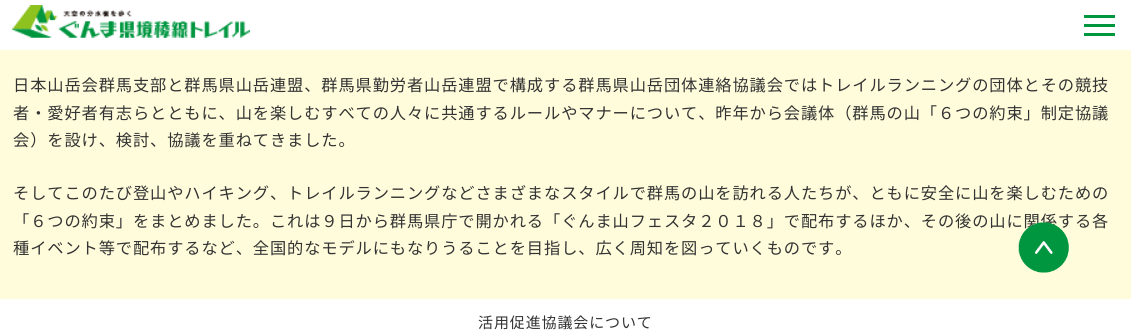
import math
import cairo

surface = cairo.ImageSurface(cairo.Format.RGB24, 1131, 334)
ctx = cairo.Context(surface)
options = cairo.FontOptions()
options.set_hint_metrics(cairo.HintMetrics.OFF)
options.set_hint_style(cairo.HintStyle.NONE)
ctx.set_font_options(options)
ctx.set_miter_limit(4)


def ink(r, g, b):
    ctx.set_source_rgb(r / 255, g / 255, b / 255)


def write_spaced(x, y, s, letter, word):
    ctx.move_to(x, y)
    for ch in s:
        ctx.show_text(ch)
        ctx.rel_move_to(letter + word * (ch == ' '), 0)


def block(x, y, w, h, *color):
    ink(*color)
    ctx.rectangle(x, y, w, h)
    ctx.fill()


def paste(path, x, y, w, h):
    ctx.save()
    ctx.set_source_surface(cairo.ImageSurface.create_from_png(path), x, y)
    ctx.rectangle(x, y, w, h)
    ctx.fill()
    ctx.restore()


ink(255, 255, 255)
ctx.paint()
block(1084, 24, 31, 3, 0, 150, 64)
block(1084, 15, 31, 3, 0, 150, 64)
block(1084, 33, 31, 3, 0, 150, 64)
paste("pic1.png", 12, 5, 238, 33)
paste("pic2.png", 12, 27, 231, 11)
block(0, 50, 1131, 249, 255, 252, 219)
ctx.select_font_face("Noto Sans JP Thin")
ctx.set_font_size(16.25)
ink(51, 51, 51)
write_spaced(13, 91, "日本山岳会群馬支部と群馬県山岳連盟、群馬県勤労者山岳連盟で構成する群馬県山岳団体連絡協議会ではトレイルランニングの団体とその競技", 0.88, 0)
write_spaced(13, 119, "者・愛好者有志らとともに、山を楽しむすべての人々に共通するルールやマナーについて、昨年から会議体（群馬の山「６つの約束」制定協議", 0.88, 0)
write_spaced(13, 146, "会）を設け、検討、協議を重ねてきました。", 0.88, 0)
write_spaced(13, 199, "そしてこのたび登山やハイキング、トレイルランニングなどさまざまなスタイルで群馬の山を訪れる人たちが、ともに安全に山を楽しむための", 0.88, 0)
write_spaced(13, 227, "「６つの約束」をまとめました。これは９日から群馬県庁で開かれる「ぐんま山フェスタ２０１８」で配布するほか、その後の山に関係する各", 0.88, 0)
write_spaced(13, 254, "種イベント等で配布するなど、全国的なモデルにもなりうることを目指し、広く周知を図っていくものです。", 0.88, 0)
ctx.set_font_size(15)
write_spaced(478, 328, "活用促進協議会について", 0.88, 0)
paste("pic3.png", 1018, 222, 51, 51)
surface.write_to_png("screenshot.png")
